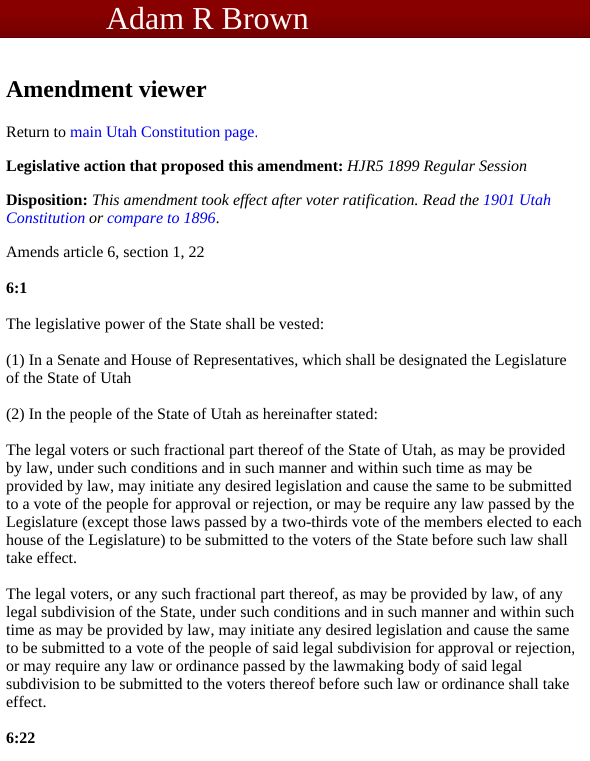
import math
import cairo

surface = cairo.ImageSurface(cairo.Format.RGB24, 590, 761)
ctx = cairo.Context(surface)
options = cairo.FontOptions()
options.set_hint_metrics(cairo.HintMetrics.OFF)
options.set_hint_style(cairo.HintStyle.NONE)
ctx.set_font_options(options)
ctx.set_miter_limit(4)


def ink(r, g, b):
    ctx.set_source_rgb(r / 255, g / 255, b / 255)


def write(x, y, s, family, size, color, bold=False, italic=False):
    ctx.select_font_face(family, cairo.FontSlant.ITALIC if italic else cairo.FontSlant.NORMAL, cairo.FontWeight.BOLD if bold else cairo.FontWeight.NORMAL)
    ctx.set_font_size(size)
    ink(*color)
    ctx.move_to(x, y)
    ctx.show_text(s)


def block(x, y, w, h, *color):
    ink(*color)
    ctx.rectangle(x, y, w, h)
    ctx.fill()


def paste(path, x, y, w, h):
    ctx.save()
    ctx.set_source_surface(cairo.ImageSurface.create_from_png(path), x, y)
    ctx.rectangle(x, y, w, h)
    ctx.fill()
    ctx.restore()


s1 = dict(family="Liberation Serif", size=32, color=(255, 247, 247))
s2 = dict(family="Liberation Serif", size=24, color=(0, 0, 0), bold=True)
s3 = dict(family="Liberation Serif", size=16, color=(0, 0, 0))
s4 = dict(family="Liberation Serif", size=16, color=(0, 0, 238))
s5 = dict(family="Liberation Serif", size=16, color=(0, 0, 0), bold=True)
s6 = dict(family="Liberation Serif", size=16, color=(0, 0, 0), italic=True)
s7 = dict(family="Liberation Serif", size=16, color=(0, 0, 238), italic=True)

ink(255, 255, 255)
ctx.paint()
block(0, 0, 590, 17, 136, 0, 0)
paste("pic1.png", 0, 17, 590, 20)
block(0, 37, 590, 1, 85, 0, 0)
write(106, 29, "Adam R Brown", **s1)
write(6, 97, "Amendment viewer", **s2)
write(6, 137, "Return to", **s3)
write(70, 137, "main Utah Constitution page.", **s4)
write(6, 171, "Legislative action that proposed this amendment:", **s5)
write(347, 171, "HJR5 1899 Regular Session", **s6)
write(6, 205, "Disposition:", **s5)
write(92, 205, "This amendment took effect after voter ratification. Read the", **s6)
write(483, 205, "1901 Utah", **s7)
write(6, 223, "Constitution", **s7)
write(89, 223, "or", **s6)
write(107, 223, "compare to 1896", **s7)
write(216, 223, ".", **s6)
write(6, 257, "Amends article 6, section 1, 22", **s3)
write(6, 293, "6:1", **s5)
write(6, 329, "The legislative power of the State shall be vested:", **s3)
write(6, 365, "(1) In a Senate and House of Representatives, which shall be designated the Legislature", **s3)
write(6, 383, "of the State of Utah", **s3)
write(6, 419, "(2) In the people of the State of Utah as hereinafter stated:", **s3)
write(6, 455, "The legal voters or such fractional part thereof of the State of Utah, as may be provided", **s3)
write(6, 473, "by law, under such conditions and in such manner and within such time as may be", **s3)
write(6, 491, "provided by law, may initiate any desired legislation and cause the same to be submitted", **s3)
write(6, 509, "to a vote of the people for approval or rejection, or may be require any law passed by the", **s3)
write(6, 527, "Legislature (except those laws passed by a two-thirds vote of the members elected to each", **s3)
write(6, 545, "house of the Legislature) to be submitted to the voters of the State before such law shall", **s3)
write(6, 563, "take effect.", **s3)
write(6, 599, "The legal voters, or any such fractional part thereof, as may be provided by law, of any", **s3)
write(6, 617, "legal subdivision of the State, under such conditions and in such manner and within such", **s3)
write(6, 635, "time as may be provided by law, may initiate any desired legislation and cause the same", **s3)
write(6, 653, "to be submitted to a vote of the people of said legal subdivision for approval or rejection,", **s3)
write(6, 671, "or may require any law or ordinance passed by the lawmaking body of said legal", **s3)
write(6, 689, "subdivision to be submitted to the voters thereof before such law or ordinance shall take", **s3)
write(6, 707, "effect.", **s3)
write(6, 743, "6:22", **s5)
surface.write_to_png("screenshot.png")
